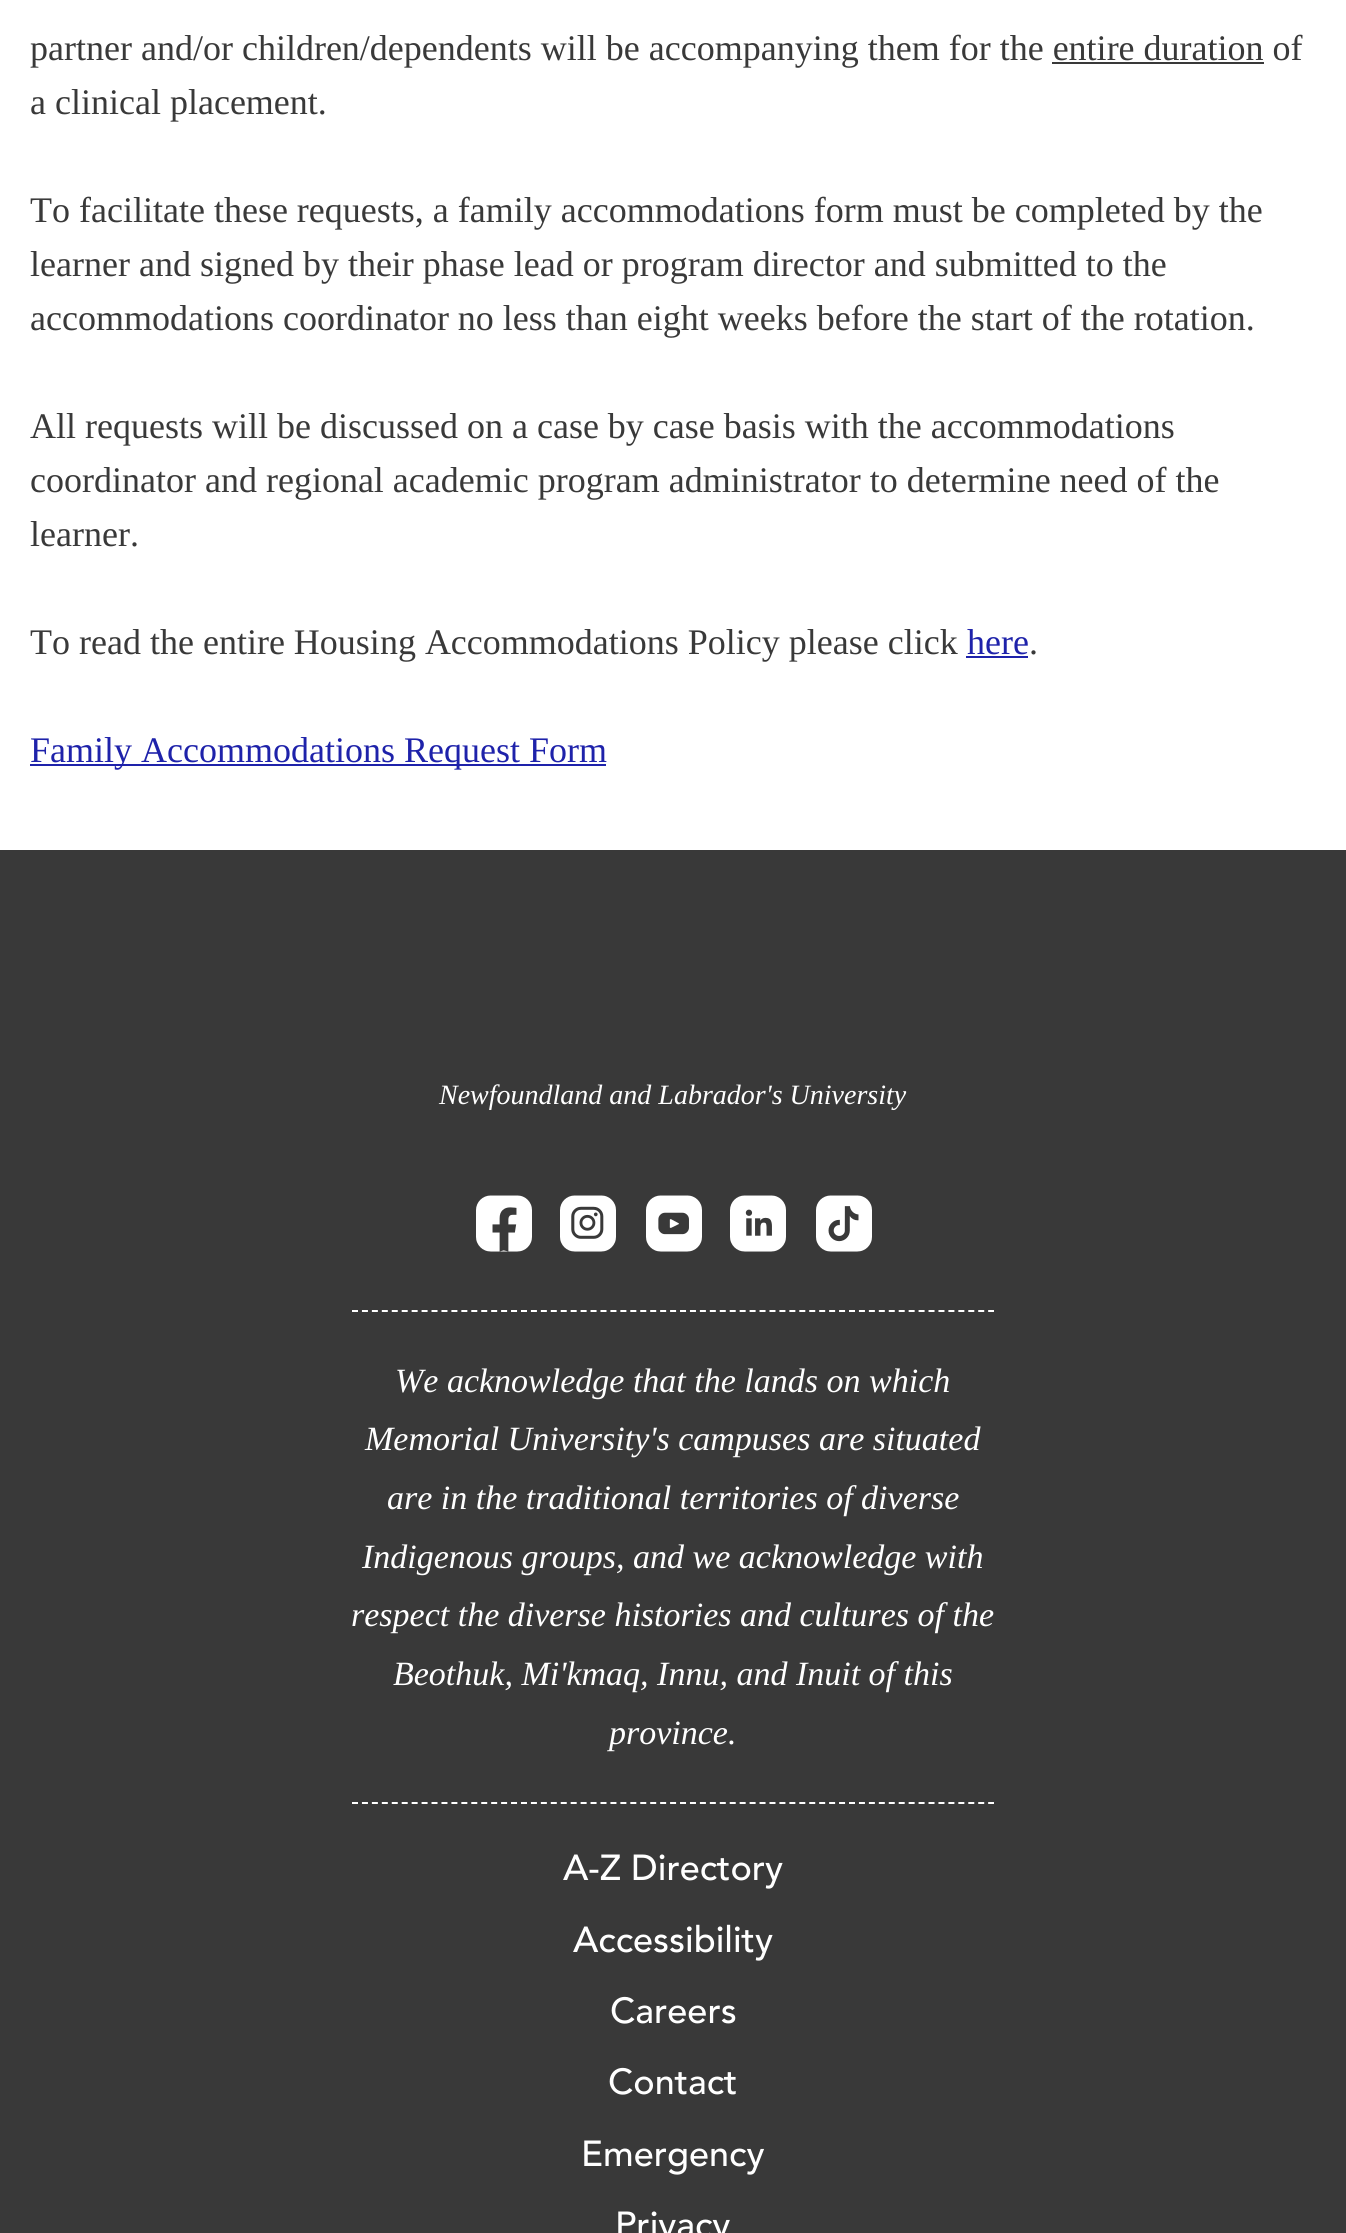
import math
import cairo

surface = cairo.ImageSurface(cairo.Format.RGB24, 1346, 2233)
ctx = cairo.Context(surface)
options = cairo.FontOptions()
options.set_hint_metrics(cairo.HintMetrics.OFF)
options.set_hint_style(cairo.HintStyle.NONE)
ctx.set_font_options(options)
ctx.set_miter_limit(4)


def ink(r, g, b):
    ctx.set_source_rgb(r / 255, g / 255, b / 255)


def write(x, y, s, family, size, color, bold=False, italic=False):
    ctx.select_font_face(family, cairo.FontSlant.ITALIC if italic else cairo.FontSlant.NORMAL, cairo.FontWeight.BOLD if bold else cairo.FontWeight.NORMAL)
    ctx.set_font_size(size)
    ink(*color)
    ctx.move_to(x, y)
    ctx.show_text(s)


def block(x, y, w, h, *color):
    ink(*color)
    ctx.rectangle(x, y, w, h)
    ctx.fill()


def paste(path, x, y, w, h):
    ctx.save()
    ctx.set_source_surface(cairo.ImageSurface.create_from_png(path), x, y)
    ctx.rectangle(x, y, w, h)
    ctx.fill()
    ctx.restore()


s1 = dict(family="Liberation Serif", size=36, color=(57, 57, 57))
s2 = dict(family="Liberation Serif", size=36, color=(30, 34, 170))
s3 = dict(family="Liberation Serif", size=28, color=(255, 255, 255), italic=True)
s4 = dict(family="Liberation Serif", size=34, color=(255, 255, 255), italic=True)
s5 = dict(family="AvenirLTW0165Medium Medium", size=36, color=(255, 255, 255))

ink(255, 255, 255)
ctx.paint()
write(30, 60, "partner and/or children/dependents will be accompanying them for the entire duration of", **s1)
block(1052, 62, 212, 2, 57, 57, 57)
write(30, 114, "a clinical placement.", **s1)
write(30, 222, "To facilitate these requests, a family accommodations form must be completed by the", **s1)
write(30, 276, "learner and signed by their phase lead or program director and submitted to the", **s1)
write(30, 330, "accommodations coordinator no less than eight weeks before the start of the rotation.", **s1)
write(30, 438, "All requests will be discussed on a case by case basis with the accommodations", **s1)
write(30, 492, "coordinator and regional academic program administrator to determine need of the", **s1)
write(30, 546, "learner.", **s1)
write(30, 654, "To read the entire Housing Accommodations Policy please click", **s1)
write(967, 654, "here", **s2)
block(966, 656, 62, 2, 30, 34, 170)
write(1029, 654, ".", **s1)
block(30, 764, 576, 2, 30, 34, 170)
write(30, 762, "Family Accommodations Request Form", **s2)
block(0, 850, 1346, 1383, 57, 57, 57)
write(439, 1104, "Newfoundland and Labrador's University", **s3)
paste("pic1.png", 476, 1195, 56, 57)
paste("pic2.png", 560, 1195, 56, 57)
paste("pic3.png", 646, 1195, 56, 57)
paste("pic4.png", 730, 1195, 56, 57)
paste("pic5.png", 816, 1195, 56, 57)
ctx.new_path()
ctx.move_to(352, 1311)
ctx.line_to(994, 1311)
ctx.set_dash([6, 3.94])
ctx.stroke()
write(395, 1392, "We acknowledge that the lands on which", **s4)
write(365, 1450, "Memorial University's campuses are situated", **s4)
write(387, 1509, "are in the traditional territories of diverse", **s4)
write(362, 1568, "Indigenous groups, and we acknowledge with", **s4)
write(351, 1626, "respect the diverse histories and cultures of the", **s4)
write(393, 1685, "Beothuk, Mi'kmaq, Innu, and Inuit of this", **s4)
write(609, 1744, "province.", **s4)
ctx.new_path()
ctx.move_to(352, 1803)
ctx.line_to(994, 1803)
ctx.stroke()
write(563, 1880, "A-Z Directory", **s5)
write(573, 1952, "Accessibility", **s5)
write(610, 2023, "Careers", **s5)
write(608, 2094, "Contact", **s5)
write(581, 2166, "Emergency", **s5)
write(615, 2237, "Privacy", **s5)
surface.write_to_png("screenshot.png")
